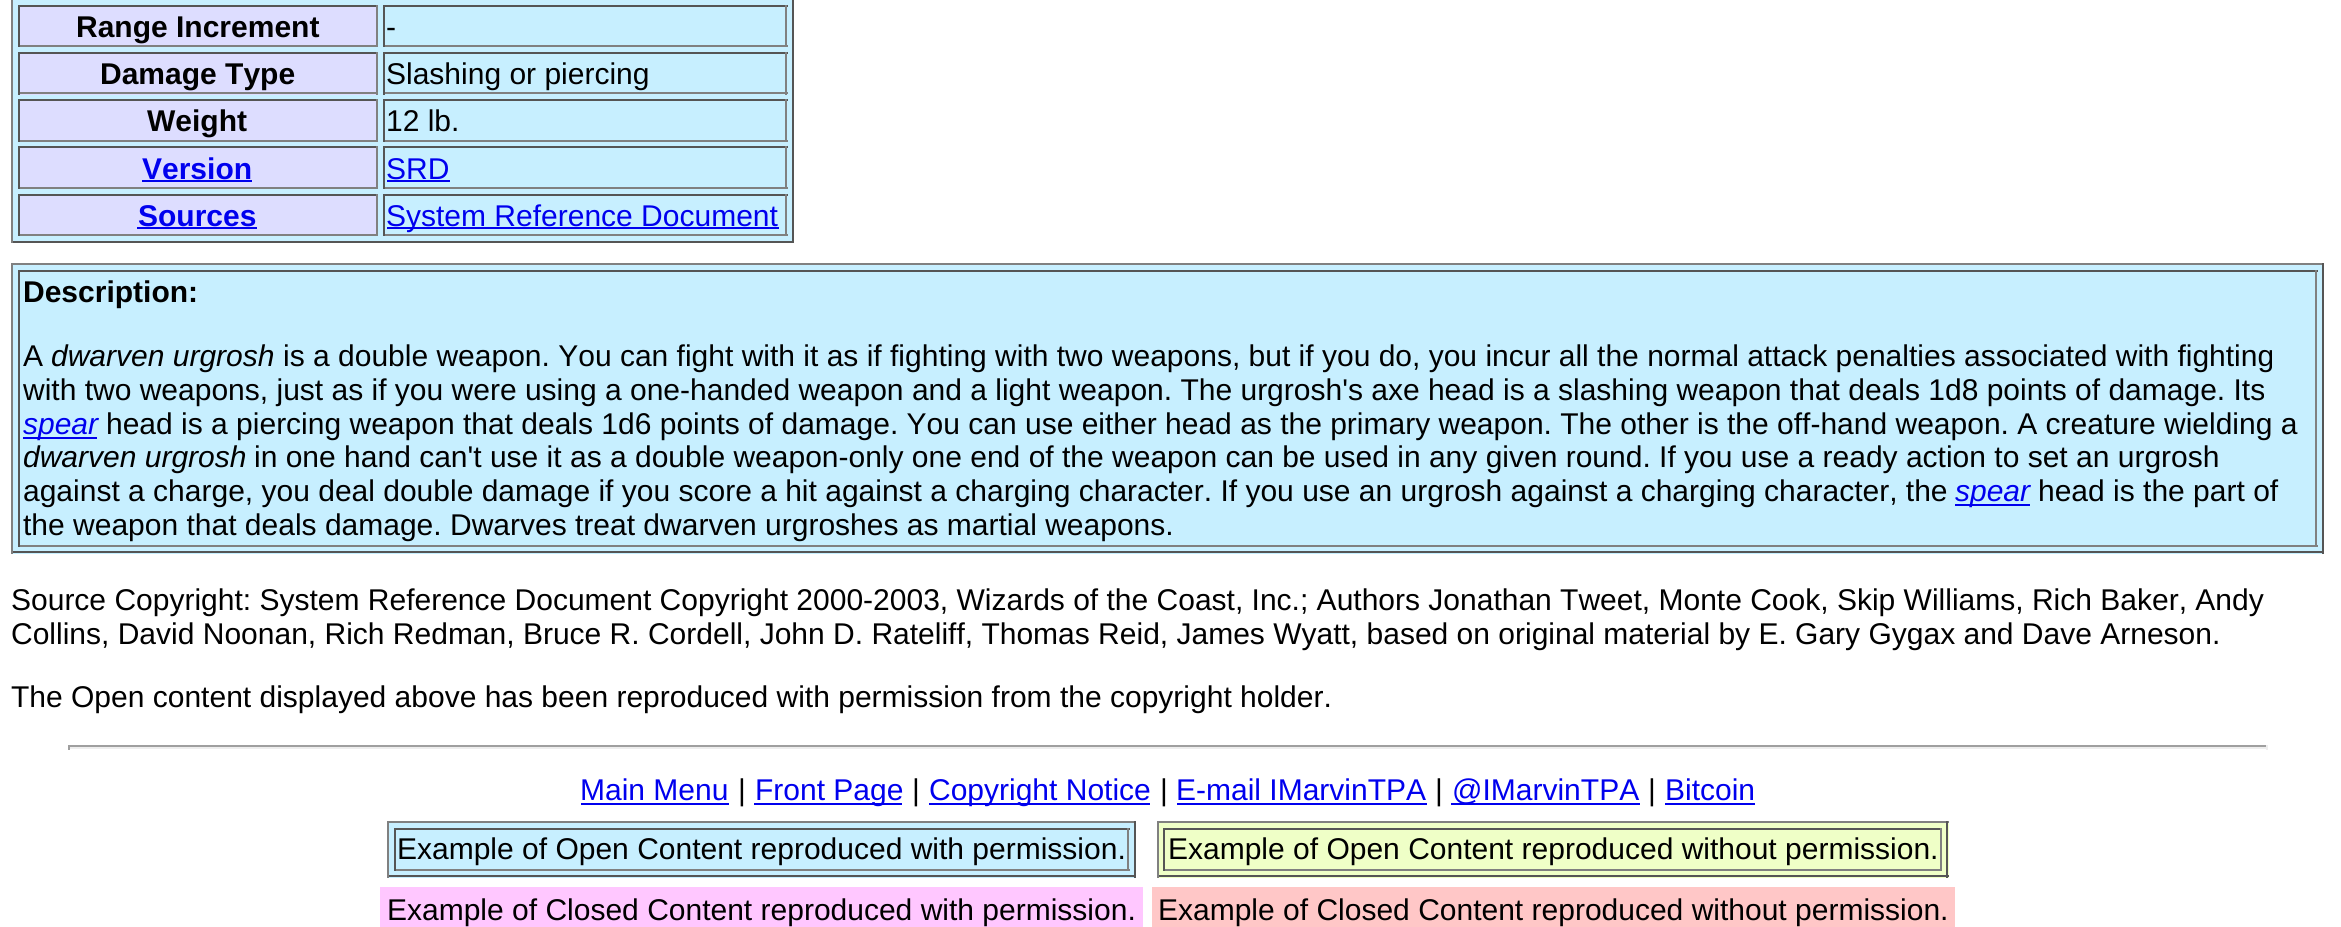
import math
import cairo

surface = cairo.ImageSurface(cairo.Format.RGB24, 2341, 927)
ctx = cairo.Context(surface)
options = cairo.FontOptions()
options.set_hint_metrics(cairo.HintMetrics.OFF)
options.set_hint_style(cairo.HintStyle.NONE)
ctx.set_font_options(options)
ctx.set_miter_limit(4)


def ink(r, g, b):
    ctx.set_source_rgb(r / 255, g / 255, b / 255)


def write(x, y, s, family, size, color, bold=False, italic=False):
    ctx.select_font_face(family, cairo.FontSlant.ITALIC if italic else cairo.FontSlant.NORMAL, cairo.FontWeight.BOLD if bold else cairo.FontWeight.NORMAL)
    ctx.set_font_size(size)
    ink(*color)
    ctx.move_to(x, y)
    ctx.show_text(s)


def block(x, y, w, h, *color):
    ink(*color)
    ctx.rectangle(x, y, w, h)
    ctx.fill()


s1 = dict(family="Liberation Sans", size=30, color=(0, 0, 0), bold=True)
s2 = dict(family="Liberation Sans", size=30, color=(0, 0, 0))
s3 = dict(family="Liberation Sans", size=30, color=(0, 0, 238), bold=True)
s4 = dict(family="Liberation Sans", size=30, color=(0, 0, 238))
s5 = dict(family="Liberation Sans", size=30, color=(0, 0, 0), italic=True)
s6 = dict(family="Liberation Sans", size=30, color=(0, 0, 238), italic=True)

ink(255, 255, 255)
ctx.paint()
block(13, 0, 779, 241, 199, 239, 255)
block(792, 0, 2, 243, 85, 85, 85)
block(11, 241, 783, 2, 85, 85, 85)
block(11, 0, 2, 243, 128, 128, 128)
block(20, 7, 356, 38, 221, 221, 255)
block(18, 5, 360, 2, 85, 85, 85)
block(376, 5, 2, 42, 128, 128, 128)
block(18, 45, 360, 2, 128, 128, 128)
block(18, 5, 2, 42, 85, 85, 85)
write(76, 37, "Range Increment", **s1)
block(383, 5, 405, 2, 85, 85, 85)
block(785, 5, 2, 42, 128, 128, 128)
block(383, 45, 405, 2, 128, 128, 128)
block(383, 5, 2, 42, 85, 85, 85)
write(386, 37, "-", **s2)
block(20, 54, 356, 41, 221, 221, 255)
block(18, 52, 360, 2, 85, 85, 85)
block(376, 52, 2, 43, 128, 128, 128)
block(18, 92, 360, 2, 128, 128, 128)
block(18, 52, 2, 43, 85, 85, 85)
write(100, 84, "Damage Type", **s1)
block(383, 52, 405, 2, 85, 85, 85)
block(785, 52, 2, 43, 128, 128, 128)
block(383, 92, 405, 2, 128, 128, 128)
block(383, 52, 2, 43, 85, 85, 85)
write(386, 84, "Slashing or piercing", **s2)
block(20, 101, 356, 39, 221, 221, 255)
block(18, 99, 360, 2, 85, 85, 85)
block(376, 99, 2, 43, 128, 128, 128)
block(18, 140, 360, 2, 128, 128, 128)
block(18, 99, 2, 43, 85, 85, 85)
write(147, 131, "Weight", **s1)
block(383, 99, 405, 2, 85, 85, 85)
block(785, 99, 2, 43, 128, 128, 128)
block(383, 140, 405, 2, 128, 128, 128)
block(383, 99, 2, 43, 85, 85, 85)
write(386, 131, "12 lb.", **s2)
block(20, 148, 356, 39, 221, 221, 255)
block(18, 146, 360, 2, 85, 85, 85)
block(376, 146, 2, 43, 128, 128, 128)
block(18, 187, 360, 2, 128, 128, 128)
block(18, 146, 2, 43, 85, 85, 85)
write(142, 179, "Version", **s3)
block(142, 180, 110, 2, 0, 0, 238)
block(383, 146, 405, 2, 85, 85, 85)
block(785, 146, 2, 43, 128, 128, 128)
block(383, 187, 405, 2, 128, 128, 128)
block(383, 146, 2, 43, 85, 85, 85)
write(386, 179, "SRD", **s4)
block(387, 180, 63, 2, 0, 0, 238)
block(20, 196, 356, 38, 221, 221, 255)
block(18, 194, 360, 2, 85, 85, 85)
block(376, 194, 2, 42, 128, 128, 128)
block(18, 234, 360, 2, 128, 128, 128)
block(18, 194, 2, 42, 85, 85, 85)
write(138, 226, "Sources", **s3)
block(137, 227, 120, 2, 0, 0, 238)
block(383, 194, 405, 2, 85, 85, 85)
block(785, 194, 2, 42, 128, 128, 128)
block(383, 234, 405, 2, 128, 128, 128)
block(383, 194, 2, 42, 85, 85, 85)
block(387, 227, 392, 2, 0, 0, 238)
write(386, 226, "System Reference Document", **s4)
block(13, 265, 2309, 289, 199, 239, 255)
block(11, 263, 2313, 2, 128, 128, 128)
block(2322, 263, 2, 291, 85, 85, 85)
block(11, 551, 2313, 2, 85, 85, 85)
block(11, 263, 2, 291, 128, 128, 128)
block(18, 270, 2300, 2, 85, 85, 85)
block(2315, 270, 2, 277, 128, 128, 128)
block(18, 545, 2300, 2, 128, 128, 128)
block(18, 270, 2, 277, 85, 85, 85)
write(23, 302, "Description:", **s1)
write(23, 366, "A", **s2)
write(51, 366, "dwarven urgrosh", **s5)
write(283, 366, "is a double weapon. You can fight with it as if fighting with two weapons, but if you do, you incur all the normal attack penalties associated with fighting", **s2)
write(23, 400, "with two weapons, just as if you were using a one-handed weapon and a light weapon. The urgrosh's axe head is a slashing weapon that deals 1d8 points of damage. Its", **s2)
block(23, 437, 74, 2, 0, 0, 238)
write(23, 434, "spear", **s6)
write(106, 434, "head is a piercing weapon that deals 1d6 points of damage. You can use either head as the primary weapon. The other is the off-hand weapon. A creature wielding a", **s2)
write(23, 467, "dwarven urgrosh", **s5)
write(254, 467, "in one hand can't use it as a double weapon-only one end of the weapon can be used in any given round. If you use a ready action to set an urgrosh", **s2)
write(23, 501, "against a charge, you deal double damage if you score a hit against a charging character. If you use an urgrosh against a charging character, the", **s2)
block(1955, 504, 75, 2, 0, 0, 238)
write(1955, 501, "spear", **s6)
write(2038, 501, "head is the part of", **s2)
write(23, 535, "the weapon that deals damage. Dwarves treat dwarven urgroshes as martial weapons.", **s2)
write(11, 610, "Source Copyright: System Reference Document Copyright 2000-2003, Wizards of the Coast, Inc.; Authors Jonathan Tweet, Monte Cook, Skip Williams, Rich Baker, Andy", **s2)
write(11, 644, "Collins, David Noonan, Rich Redman, Bruce R. Cordell, John D. Rateliff, Thomas Reid, James Wyatt, based on original material by E. Gary Gygax and Dave Arneson.", **s2)
write(11, 707, "The Open content displayed above has been reproduced with permission from the copyright holder.", **s2)
block(68, 745, 2200, 2, 159, 159, 159)
block(2266, 745, 2, 5, 238, 238, 238)
block(68, 747, 2200, 2, 238, 238, 238)
block(68, 745, 2, 5, 159, 159, 159)
write(580, 800, "Main Menu", **s4)
block(581, 803, 148, 2, 0, 0, 238)
write(738, 800, "|", **s2)
block(754, 803, 148, 2, 0, 0, 238)
write(755, 800, "Front Page", **s4)
write(912, 800, "|", **s2)
block(929, 803, 221, 2, 0, 0, 238)
write(929, 800, "Copyright Notice", **s4)
write(1160, 800, "|", **s2)
write(1176, 800, "E-mail IMarvinTPA", **s4)
block(1177, 803, 250, 2, 0, 0, 238)
write(1435, 800, "|", **s2)
block(1451, 803, 189, 2, 0, 0, 238)
write(1452, 800, "@IMarvinTPA", **s4)
write(1648, 800, "|", **s2)
write(1665, 800, "Bitcoin", **s4)
block(1665, 803, 90, 2, 0, 0, 238)
block(389, 823, 745, 55, 199, 239, 255)
block(387, 821, 749, 2, 128, 128, 128)
block(1134, 821, 2, 57, 85, 85, 85)
block(387, 875, 749, 2, 85, 85, 85)
block(387, 821, 2, 57, 128, 128, 128)
block(394, 828, 736, 2, 85, 85, 85)
block(1127, 828, 2, 43, 128, 128, 128)
block(394, 869, 736, 2, 128, 128, 128)
block(394, 828, 2, 43, 85, 85, 85)
write(397, 859, "Example of Open Content reproduced with permission.", **s2)
block(1159, 823, 790, 55, 239, 255, 199)
block(1157, 821, 792, 2, 128, 128, 128)
block(1946, 821, 2, 57, 85, 85, 85)
block(1157, 875, 792, 2, 85, 85, 85)
block(1157, 821, 2, 57, 128, 128, 128)
block(1163, 828, 779, 2, 85, 85, 85)
block(1940, 828, 2, 43, 128, 128, 128)
block(1163, 869, 779, 2, 128, 128, 128)
block(1163, 828, 2, 43, 85, 85, 85)
write(1168, 859, "Example of Open Content reproduced without permission.", **s2)
block(380, 887, 763, 40, 255, 199, 255)
write(387, 920, "Example of Closed Content reproduced with permission.", **s2)
block(1152, 887, 803, 40, 255, 199, 199)
write(1158, 920, "Example of Closed Content reproduced without permission.", **s2)
surface.write_to_png("screenshot.png")
